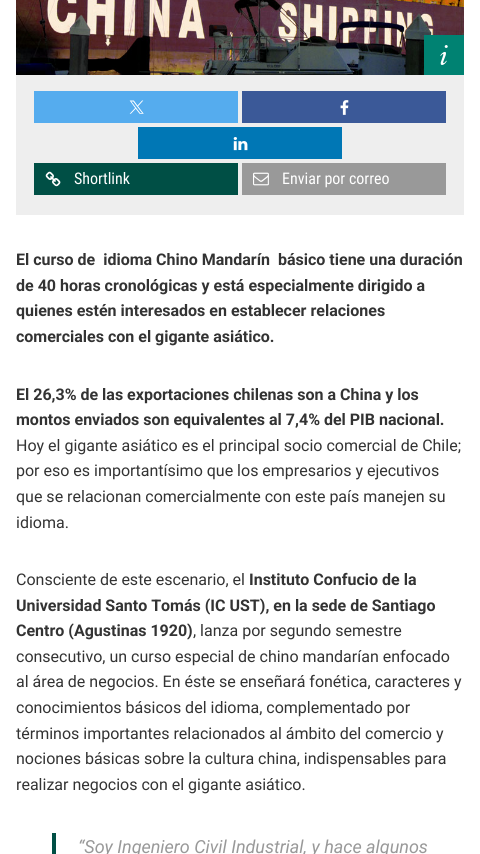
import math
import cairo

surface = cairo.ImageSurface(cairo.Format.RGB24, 480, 854)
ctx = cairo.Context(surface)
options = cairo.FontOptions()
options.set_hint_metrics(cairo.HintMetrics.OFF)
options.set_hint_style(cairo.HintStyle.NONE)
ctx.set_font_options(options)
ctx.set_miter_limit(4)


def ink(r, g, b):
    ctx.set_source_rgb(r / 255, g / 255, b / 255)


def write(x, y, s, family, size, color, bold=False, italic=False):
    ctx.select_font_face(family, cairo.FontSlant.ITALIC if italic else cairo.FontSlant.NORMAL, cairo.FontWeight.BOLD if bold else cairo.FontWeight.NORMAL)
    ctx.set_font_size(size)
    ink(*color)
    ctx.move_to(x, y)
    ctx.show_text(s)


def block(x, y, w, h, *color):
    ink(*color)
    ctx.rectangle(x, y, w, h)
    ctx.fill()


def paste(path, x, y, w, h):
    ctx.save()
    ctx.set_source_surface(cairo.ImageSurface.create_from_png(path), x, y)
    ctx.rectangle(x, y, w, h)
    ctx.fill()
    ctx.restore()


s1 = dict(family="Roboto Condensed", size=16, color=(255, 255, 255))
s2 = dict(family="Roboto", size=16, color=(51, 51, 51), bold=True)
s3 = dict(family="Roboto", size=16, color=(51, 51, 51))
s4 = dict(family="Roboto", size=18, color=(153, 153, 153), italic=True)

ink(255, 255, 255)
ctx.paint()
paste("pic1.png", 16, 0, 448, 75)
block(424, 35, 40, 40, 0, 130, 114)
paste("pic2.png", 440, 45, 8, 20)
block(16, 75, 448, 140, 238, 238, 238)
block(34, 91, 204, 32, 85, 172, 238)
paste("pic3.png", 129, 100, 15, 14)
block(242, 91, 204, 32, 59, 89, 152)
paste("pic4.png", 340, 100, 9, 15)
block(138, 127, 204, 32, 0, 119, 181)
paste("pic5.png", 233, 137, 15, 14)
block(34, 163, 204, 32, 0, 79, 69)
paste("pic6.png", 45, 171, 16, 16)
write(74, 184, "Shortlink", **s1)
block(242, 163, 204, 32, 153, 153, 153)
paste("pic7.png", 253, 172, 16, 14)
write(282, 184, "Enviar por correo", **s1)
write(16, 265, "El curso de  idioma Chino Mandarín  básico tiene una duración", **s2)
write(16, 291, "de 40 horas cronológicas y está especialmente dirigido a", **s2)
write(16, 316, "quienes estén interesados en establecer relaciones", **s2)
write(16, 342, "comerciales con el gigante asiático.", **s2)
write(16, 400, "El 26,3% de las exportaciones chilenas son a China y los", **s2)
write(16, 425, "montos enviados son equivalentes al 7,4% del PIB nacional.", **s2)
write(16, 451, "Hoy el gigante asiático es el principal socio comercial de Chile;", **s3)
write(16, 476, "por eso es importantísimo que los empresarios y ejecutivos", **s3)
write(16, 502, "que se relacionan comercialmente con este país manejen su", **s3)
write(16, 528, "idioma.", **s3)
write(16, 585, "Consciente de este escenario, el", **s3)
write(249, 585, "Instituto Confucio de la", **s2)
write(16, 611, "Universidad Santo Tomás (IC UST), en la sede de Santiago", **s2)
write(16, 636, "Centro (Agustinas 1920)", **s2)
write(193, 636, ", lanza por segundo semestre", **s3)
write(16, 662, "consecutivo, un curso especial de chino mandarían enfocado", **s3)
write(16, 687, "al área de negocios. En éste se enseñará fonética, caracteres y", **s3)
write(16, 713, "conocimientos básicos del idioma, complementado por", **s3)
write(16, 739, "términos importantes relacionados al ámbito del comercio y", **s3)
write(16, 764, "nociones básicas sobre la cultura china, indispensables para", **s3)
write(16, 790, "realizar negocios con el gigante asiático.", **s3)
block(52, 833, 4, 21, 0, 79, 69)
write(78, 853, "“Soy Ingeniero Civil Industrial, y hace algunos", **s4)
surface.write_to_png("screenshot.png")
